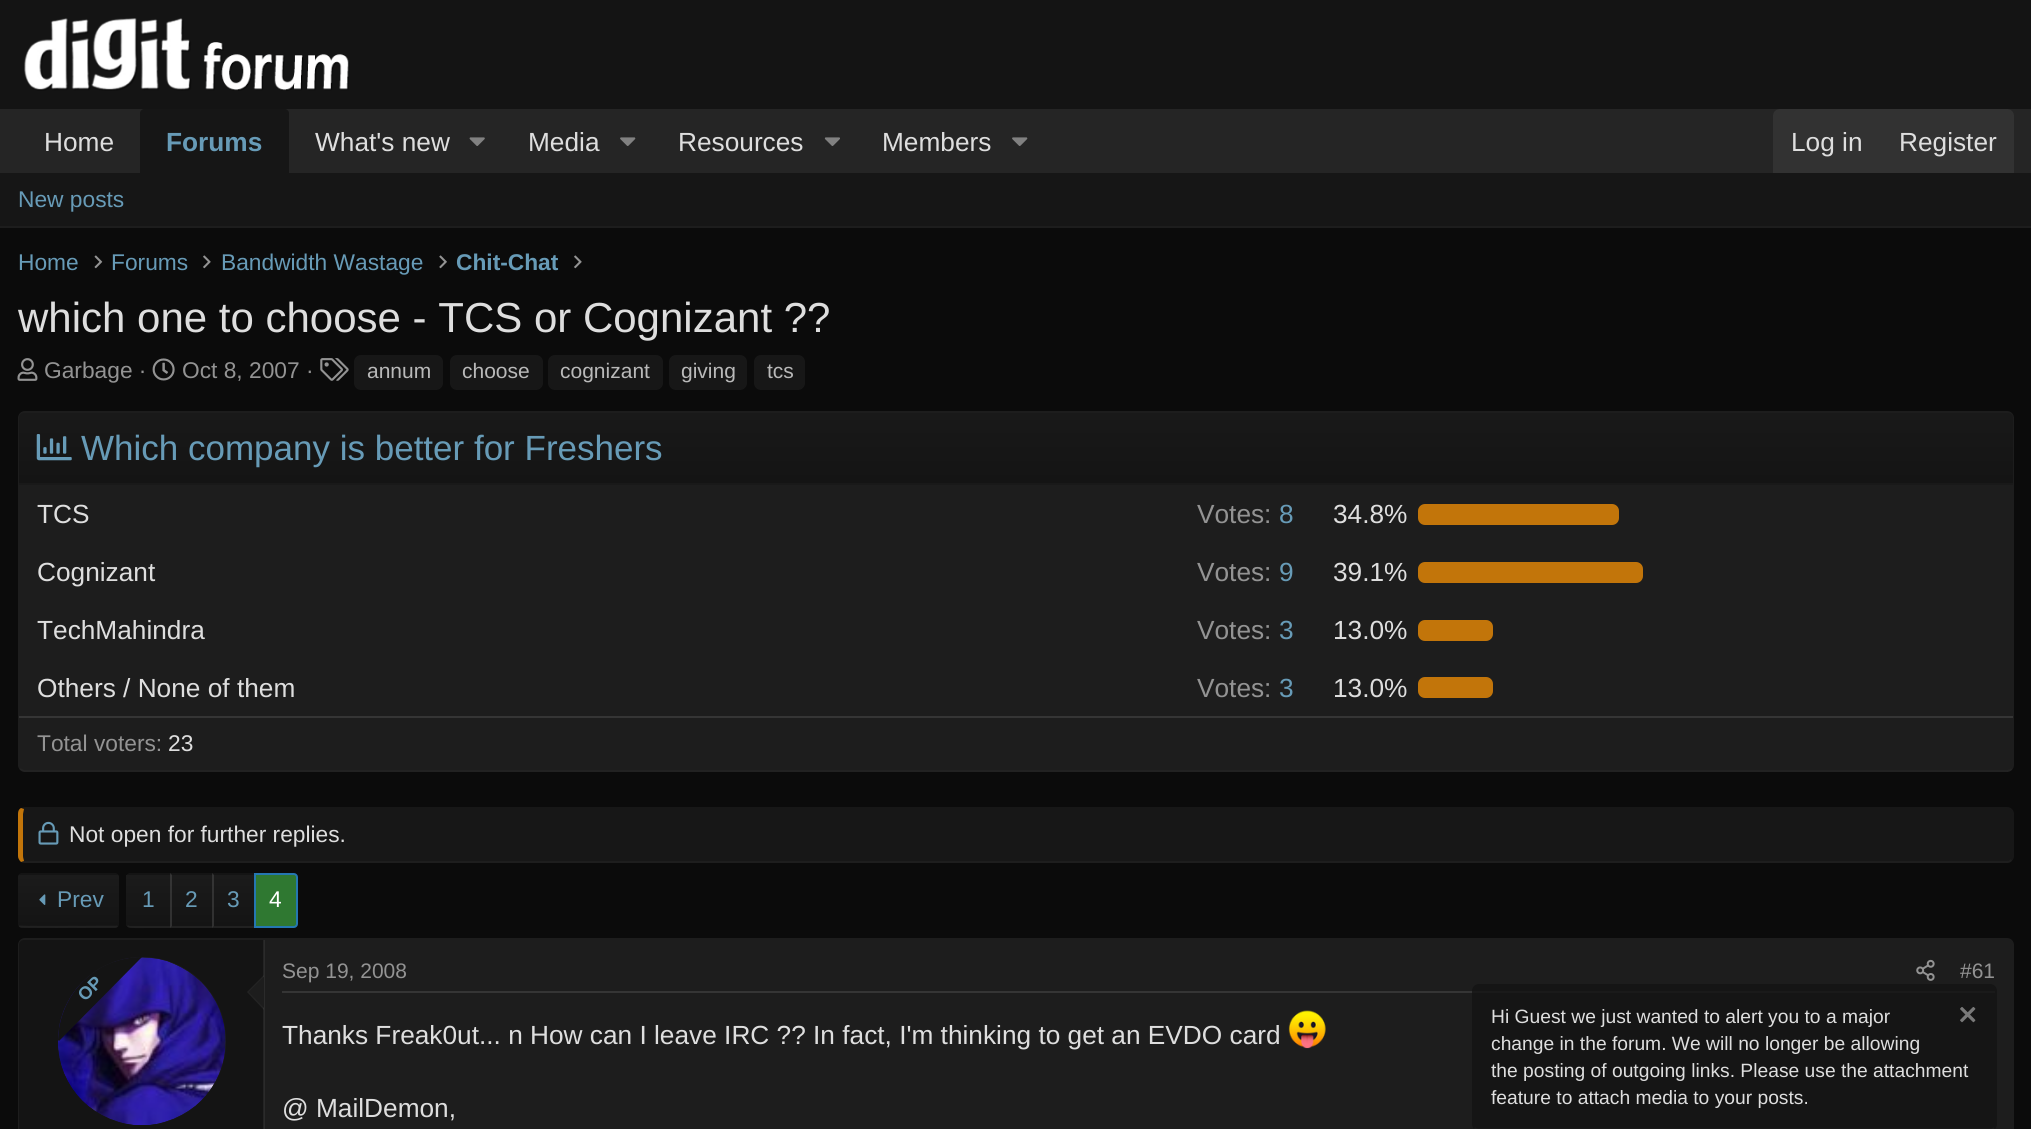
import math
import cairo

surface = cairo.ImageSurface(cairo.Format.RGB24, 2031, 1129)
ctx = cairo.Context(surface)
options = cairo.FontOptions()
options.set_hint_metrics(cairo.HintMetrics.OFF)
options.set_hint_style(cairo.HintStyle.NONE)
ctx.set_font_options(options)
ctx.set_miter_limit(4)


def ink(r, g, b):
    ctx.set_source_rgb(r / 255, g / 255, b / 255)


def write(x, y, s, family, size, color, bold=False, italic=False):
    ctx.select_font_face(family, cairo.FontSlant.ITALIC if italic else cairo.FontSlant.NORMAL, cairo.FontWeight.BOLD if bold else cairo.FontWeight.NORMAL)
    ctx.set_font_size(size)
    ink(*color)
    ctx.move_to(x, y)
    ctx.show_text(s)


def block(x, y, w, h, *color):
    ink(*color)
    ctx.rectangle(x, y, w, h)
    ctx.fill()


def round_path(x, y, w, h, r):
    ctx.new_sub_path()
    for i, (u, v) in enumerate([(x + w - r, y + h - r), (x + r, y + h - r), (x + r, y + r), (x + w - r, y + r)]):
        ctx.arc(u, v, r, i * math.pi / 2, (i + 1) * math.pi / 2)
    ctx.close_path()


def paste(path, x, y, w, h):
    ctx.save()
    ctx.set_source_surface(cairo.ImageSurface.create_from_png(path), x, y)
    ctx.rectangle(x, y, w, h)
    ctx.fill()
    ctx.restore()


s1 = dict(family="Liberation Sans", size=26.25, color=(222, 222, 222))
s2 = dict(family="Liberation Sans", size=26.25, color=(103, 155, 183), bold=True)
s3 = dict(family="Liberation Sans", size=22.75, color=(103, 155, 183))
s4 = dict(family="Liberation Sans", size=22.75, color=(103, 155, 183), bold=True)
s5 = dict(family="Liberation Sans", size=42, color=(222, 222, 222))
s6 = dict(family="Liberation Sans", size=22.75, color=(147, 147, 147))
s7 = dict(family="Liberation Sans", size=21, color=(185, 185, 185))
s8 = dict(family="Liberation Sans", size=35, color=(103, 155, 183))
s9 = dict(family="Liberation Sans", size=26.25, color=(147, 147, 147))
s10 = dict(family="Liberation Sans", size=26.25, color=(103, 155, 183))
s11 = dict(family="Liberation Sans", size=22.75, color=(222, 222, 222))
s12 = dict(family="Liberation Sans", size=22.75, color=(255, 255, 255))
s13 = dict(family="Liberation Sans", size=18, color=(103, 155, 183), bold=True)
s14 = dict(family="Liberation Sans", size=21, color=(147, 147, 147))
s15 = dict(family="Liberation Sans", size=19.25, color=(222, 222, 222))

ink(11, 11, 11)
ctx.paint()
block(0, 0, 2031, 109, 20, 20, 20)
paste("pic1.png", 24, 18, 326, 73)
block(0, 109, 2031, 64, 37, 37, 37)
write(44, 151, "Home", **s1)
ink(22, 22, 22)
ctx.new_path()
ctx.move_to(144, 109)
ctx.line_to(285, 109)
ctx.curve_to(287, 109, 289, 111, 289, 113)
ctx.line_to(289, 173)
ctx.line_to(140, 173)
ctx.line_to(140, 113)
ctx.curve_to(140, 111, 142, 109, 144, 109)
ctx.close_path()
ctx.fill()
write(166, 151, "Forums", **s2)
write(315, 151, "What's new", **s1)
paste("pic2.png", 469, 137, 16, 9)
write(528, 151, "Media", **s1)
paste("pic3.png", 620, 137, 16, 9)
write(678, 151, "Resources", **s1)
paste("pic4.png", 824, 137, 16, 9)
write(882, 151, "Members", **s1)
paste("pic3.png", 1012, 137, 16, 9)
ink(50, 50, 50)
ctx.new_path()
ctx.move_to(1780, 109)
ctx.line_to(2007, 109)
ctx.curve_to(2011, 109, 2014, 112, 2014, 116)
ctx.line_to(2014, 173)
ctx.line_to(1773, 173)
ctx.line_to(1773, 116)
ctx.curve_to(1773, 112, 1776, 109, 1780, 109)
ctx.close_path()
ctx.fill()
write(1791, 151, "Log in", **s1)
write(1899, 151, "Register", **s1)
block(0, 173, 2031, 53, 22, 22, 22)
block(0, 226, 2031, 2, 29, 29, 29)
write(18, 207, "New posts", **s3)
write(18, 270, "Home", **s3)
paste("pic5.png", 94, 255, 9, 14)
write(111, 270, "Forums", **s3)
paste("pic6.png", 203, 255, 8, 14)
write(221, 270, "Bandwidth Wastage", **s3)
paste("pic7.png", 439, 255, 8, 14)
write(456, 270, "Chit-Chat", **s4)
paste("pic6.png", 574, 255, 8, 14)
write(18, 332, "which one to choose - TCS or Cognizant ??", **s5)
paste("pic8.png", 17, 358, 21, 23)
write(44, 378, "Garbage ·", **s6)
paste("pic9.png", 152, 358, 23, 23)
write(182, 378, "Oct 8, 2007 ·", **s6)
paste("pic10.png", 320, 358, 29, 23)
ink(23, 23, 23)
round_path(354, 355, 89, 35, 7)
ctx.fill()
write(367, 378, "annum", **s7)
ink(23, 23, 23)
round_path(450, 355, 93, 35, 7)
ctx.fill()
write(462, 378, "choose", **s7)
ink(23, 23, 23)
round_path(548, 355, 115, 35, 7)
ctx.fill()
write(560, 378, "cognizant", **s7)
ink(23, 23, 23)
round_path(669, 355, 78, 35, 7)
ctx.fill()
write(681, 378, "giving", **s7)
ink(23, 23, 23)
round_path(754, 355, 51, 35, 7)
ctx.fill()
write(767, 378, "tcs", **s7)
ink(29, 29, 29)
round_path(18, 411, 1996, 361, 7)
ctx.fill()
ctx.new_path()
ctx.move_to(2011.5, 769)
ctx.curve_to(2010.5, 770, 2009, 771, 2007, 771)
ctx.line_to(24.5, 771)
ctx.curve_to(23, 771, 21.5, 770, 20, 769)
ctx.set_source_rgba(0.353, 0.353, 0.353, 0.1)
ctx.set_line_width(1.8)
ctx.stroke()
gradient = cairo.LinearGradient(1016, 483, 1016, 413)
gradient.add_color_stop_rgba(0, 0.078, 0.078, 0.078, 1)
gradient.add_color_stop_rgba(1, 0.098, 0.098, 0.098, 1)
ctx.set_source(gradient)
ctx.new_path()
ctx.move_to(24, 413)
ctx.line_to(2008, 413)
ctx.curve_to(2011, 413, 2013, 415, 2013, 418)
ctx.line_to(2013, 483)
ctx.line_to(19, 483)
ctx.line_to(19, 418)
ctx.curve_to(19, 415, 21, 413, 24, 413)
ctx.close_path()
ctx.fill()
gradient = cairo.LinearGradient(1016, 553, 1016, 483)
gradient.add_color_stop_rgba(0, 0.078, 0.078, 0.078, 1)
gradient.add_color_stop_rgba(1, 0.098, 0.098, 0.098, 1)
ctx.set_source(gradient)
ctx.rectangle(19, 483, 1994, 2)
ctx.fill()
paste("pic11.png", 36, 434, 36, 27)
write(81, 460, "Which company is better for Freshers", **s8)
write(37, 523, "TCS", **s1)
write(1197, 523, "Votes:", **s9)
write(1279, 523, "8", **s10)
write(1333, 523, "34.8%", **s1)
ink(194, 117, 10)
round_path(1418, 504, 201, 21, 7)
ctx.fill()
write(37, 581, "Cognizant", **s1)
write(1197, 581, "Votes:", **s9)
write(1279, 581, "9", **s10)
write(1333, 581, "39.1%", **s1)
ink(194, 117, 10)
round_path(1418, 562, 225, 21, 7)
ctx.fill()
write(37, 639, "TechMahindra", **s1)
write(1197, 639, "Votes:", **s9)
write(1279, 639, "3", **s10)
write(1333, 639, "13.0%", **s1)
ink(194, 117, 10)
round_path(1418, 620, 75, 21, 7)
ctx.fill()
write(37, 697, "Others / None of them", **s1)
write(1197, 697, "Votes:", **s9)
write(1279, 697, "3", **s10)
write(1333, 697, "13.0%", **s1)
ink(194, 117, 10)
round_path(1418, 677, 75, 21, 7)
ctx.fill()
block(19, 716, 1994, 2, 53, 53, 53)
write(37, 751, "Total voters:", **s6)
write(168, 751, "23", **s11)
ink(23, 23, 23)
round_path(18, 807, 1996, 56, 7)
ctx.fill()
ctx.set_source_rgba(0.353, 0.353, 0.353, 0.1)
ctx.new_path()
ctx.move_to(22, 863)
ctx.line_to(21, 862)
ctx.line_to(24, 861)
ctx.line_to(2007, 861)
ctx.curve_to(2009, 861, 2010, 860, 2011, 859)
ctx.line_to(2012, 861)
ctx.line_to(2009, 863)
ctx.close_path()
ctx.fill()
ink(194, 117, 10)
ctx.new_path()
ctx.move_to(21, 808)
ctx.curve_to(19, 809, 18, 811, 18, 814)
ctx.line_to(18, 856)
ctx.curve_to(18, 858, 19, 860, 21, 862)
ctx.line_to(24, 861)
ctx.curve_to(24, 860, 23, 858, 23, 856)
ctx.line_to(23, 814)
ctx.line_to(24, 809)
ctx.close_path()
ctx.fill()
paste("pic12.png", 38, 821, 21, 24)
write(69, 842, "Not open for further replies.", **s11)
ctx.save()
round_path(18, 873, 101, 55, 4)
ctx.clip()
gradient = cairo.LinearGradient(68, 875, 68, 824)
gradient.add_color_stop_rgba(0, 0.078, 0.078, 0.078, 1)
gradient.add_color_stop_rgba(1, 0.106, 0.106, 0.106, 1)
ctx.set_source(gradient)
ctx.rectangle(18, 873, 101, 2)
ctx.fill()
gradient = cairo.LinearGradient(68, 926, 68, 875)
gradient.add_color_stop_rgba(0, 0.078, 0.078, 0.078, 1)
gradient.add_color_stop_rgba(1, 0.106, 0.106, 0.106, 1)
ctx.set_source(gradient)
ctx.rectangle(18, 875, 101, 51)
ctx.fill()
gradient = cairo.LinearGradient(68, 977, 68, 926)
gradient.add_color_stop_rgba(0, 0.078, 0.078, 0.078, 1)
gradient.add_color_stop_rgba(1, 0.106, 0.106, 0.106, 1)
ctx.set_source(gradient)
ctx.rectangle(18, 926, 101, 2)
ctx.fill()
ctx.restore()
ctx.new_path()
ctx.move_to(117.5, 926)
ctx.line_to(115.5, 926.5)
ctx.line_to(100, 926.5)
ctx.curve_to(91.5, 926.5, 21.5, 927.5, 19.5, 926)
ctx.line_to(19, 926)
ctx.set_source_rgba(0.353, 0.353, 0.353, 0.1)
ctx.stroke()
paste("pic13.png", 39, 894, 7, 11)
write(57, 907, "Prev", **s3)
ctx.save()
ctx.new_path()
ctx.move_to(130, 873)
ctx.line_to(170, 873)
ctx.line_to(170, 928)
ctx.line_to(130, 928)
ctx.curve_to(128, 928, 126, 926, 126, 924)
ctx.line_to(126, 877)
ctx.curve_to(126, 875, 128, 873, 130, 873)
ctx.close_path()
ctx.clip()
gradient = cairo.LinearGradient(149, 875, 149, 824)
gradient.add_color_stop_rgba(0, 0.078, 0.078, 0.078, 1)
gradient.add_color_stop_rgba(1, 0.106, 0.106, 0.106, 1)
ctx.set_source(gradient)
ctx.rectangle(126, 873, 44, 2)
ctx.fill()
ctx.restore()
gradient = cairo.LinearGradient(149, 926, 149, 875)
gradient.add_color_stop_rgba(0, 0.078, 0.078, 0.078, 1)
gradient.add_color_stop_rgba(1, 0.106, 0.106, 0.106, 1)
ctx.set_source(gradient)
ctx.rectangle(126, 875, 44, 51)
ctx.fill()
ctx.save()
ctx.new_path()
ctx.move_to(130, 873)
ctx.line_to(170, 873)
ctx.line_to(170, 928)
ctx.line_to(130, 928)
ctx.curve_to(128, 928, 126, 926, 126, 924)
ctx.line_to(126, 877)
ctx.curve_to(126, 875, 128, 873, 130, 873)
ctx.close_path()
ctx.clip()
gradient = cairo.LinearGradient(149, 977, 149, 926)
gradient.add_color_stop_rgba(0, 0.078, 0.078, 0.078, 1)
gradient.add_color_stop_rgba(1, 0.106, 0.106, 0.106, 1)
ctx.set_source(gradient)
ctx.rectangle(126, 926, 44, 2)
ctx.fill()
ctx.restore()
ctx.set_source_rgba(0.353, 0.353, 0.353, 0.1)
ctx.new_path()
ctx.move_to(170, 928)
ctx.line_to(145, 928)
ctx.curve_to(143, 928, 130, 929, 127, 926)
ctx.line_to(128, 925)
ctx.line_to(130, 926)
ctx.line_to(170, 926)
ctx.close_path()
ctx.fill()
write(142, 907, "1", **s3)
gradient = cairo.LinearGradient(192, 875, 192, 824)
gradient.add_color_stop_rgba(0, 0.078, 0.078, 0.078, 1)
gradient.add_color_stop_rgba(1, 0.106, 0.106, 0.106, 1)
ctx.set_source(gradient)
ctx.rectangle(170, 873, 42, 2)
ctx.fill()
gradient = cairo.LinearGradient(192, 926, 192, 875)
gradient.add_color_stop_rgba(0, 0.078, 0.078, 0.078, 1)
gradient.add_color_stop_rgba(1, 0.106, 0.106, 0.106, 1)
ctx.set_source(gradient)
ctx.rectangle(170, 875, 42, 51)
ctx.fill()
gradient = cairo.LinearGradient(192, 977, 192, 926)
gradient.add_color_stop_rgba(0, 0.078, 0.078, 0.078, 1)
gradient.add_color_stop_rgba(1, 0.106, 0.106, 0.106, 1)
ctx.set_source(gradient)
ctx.rectangle(170, 926, 2, 2)
ctx.fill()
ink(33, 33, 33)
ctx.new_path()
ctx.move_to(212, 928)
ctx.line_to(170, 928)
ctx.line_to(172, 926)
ctx.line_to(212, 926)
ctx.close_path()
ctx.fill()
ctx.set_source_rgba(0.353, 0.353, 0.353, 0.4)
ctx.new_path()
ctx.move_to(170, 928)
ctx.line_to(170, 873)
ctx.line_to(172, 875)
ctx.line_to(172, 926)
ctx.close_path()
ctx.fill()
write(185, 907, "2", **s3)
gradient = cairo.LinearGradient(234, 875, 234, 824)
gradient.add_color_stop_rgba(0, 0.078, 0.078, 0.078, 1)
gradient.add_color_stop_rgba(1, 0.106, 0.106, 0.106, 1)
ctx.set_source(gradient)
ctx.rectangle(212, 873, 42, 2)
ctx.fill()
gradient = cairo.LinearGradient(234, 926, 234, 875)
gradient.add_color_stop_rgba(0, 0.078, 0.078, 0.078, 1)
gradient.add_color_stop_rgba(1, 0.106, 0.106, 0.106, 1)
ctx.set_source(gradient)
ctx.rectangle(212, 875, 42, 51)
ctx.fill()
gradient = cairo.LinearGradient(234, 977, 234, 926)
gradient.add_color_stop_rgba(0, 0.078, 0.078, 0.078, 1)
gradient.add_color_stop_rgba(1, 0.106, 0.106, 0.106, 1)
ctx.set_source(gradient)
ctx.rectangle(212, 926, 2, 2)
ctx.fill()
ink(33, 33, 33)
ctx.new_path()
ctx.move_to(254, 928)
ctx.line_to(212, 928)
ctx.line_to(214, 926)
ctx.line_to(254, 926)
ctx.close_path()
ctx.fill()
ctx.set_source_rgba(0.353, 0.353, 0.353, 0.4)
ctx.new_path()
ctx.move_to(212, 928)
ctx.line_to(212, 873)
ctx.line_to(214, 875)
ctx.line_to(214, 926)
ctx.close_path()
ctx.fill()
write(227, 907, "3", **s3)
ink(47, 120, 49)
ctx.new_path()
ctx.move_to(255, 874)
ctx.line_to(294, 874)
ctx.curve_to(295.5, 874, 297, 875.5, 297, 877)
ctx.line_to(297, 924)
ctx.curve_to(297, 925.5, 295.5, 927, 294, 927)
ctx.line_to(255, 927)
ctx.close_path()
ctx.fill_preserve()
ink(37, 119, 177)
ctx.set_line_width(2)
ctx.stroke()
write(269, 907, "4", **s12)
ink(29, 29, 29)
round_path(18, 938, 1996, 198, 7)
ctx.fill()
block(264, 940, 1, 189, 43, 43, 43)
ink(20, 20, 20)
ctx.new_path()
ctx.move_to(24, 940)
ctx.line_to(264, 940)
ctx.line_to(264, 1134)
ctx.line_to(24, 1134)
ctx.curve_to(21, 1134, 19, 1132, 19, 1129)
ctx.line_to(19, 945)
ctx.curve_to(19, 942, 21, 940, 24, 940)
ctx.close_path()
ctx.fill()
block(263, 940, 1, 189, 36, 36, 36)
ink(29, 29, 29)
ctx.arc(142, 1041, 84, 0, 2 * math.pi)
ctx.fill()
paste("pic14.png", 58, 957, 168, 168)
ink(20, 20, 20)
ctx.new_path()
ctx.move_to(142, 957)
ctx.curve_to(96, 957, 59, 994, 58, 1040)
ctx.line_to(59, 1041)
ctx.close_path()
ctx.fill()
ctx.save()
ctx.translate(85, 1002)
ctx.rotate(-45 * math.pi / 180)
write(0, 0, "OP", **s13)
ctx.restore()
ctx.set_source_rgba(0.392, 0.392, 0.392, 0.2)
ctx.new_path()
ctx.move_to(264, 975)
ctx.line_to(264, 1010)
ctx.line_to(247, 992)
ctx.close_path()
ctx.fill()
ink(29, 29, 29)
ctx.new_path()
ctx.move_to(264, 976.5)
ctx.line_to(264, 1008)
ctx.line_to(248.5, 992)
ctx.close_path()
ctx.fill()
block(282, 991, 1713, 2, 53, 53, 53)
write(282, 978, "Sep 19, 2008", **s14)
paste("pic15.png", 1916, 959, 19, 22)
write(1960, 978, "#61", **s14)
write(282, 1044, "Thanks Freak0ut... n How can I leave IRC ?? In fact, I'm thinking to get an EVDO card", **s1)
paste("pic16.png", 1288, 1010, 38, 39)
write(282, 1117, "@ MailDemon,", **s1)
ctx.set_source_rgba(0.078, 0.078, 0.078, 0.8)
round_path(1472, 984, 525, 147, 7)
ctx.fill()
ctx.new_path()
ctx.move_to(1994, 1128)
ctx.curve_to(1993, 1129, 1991.5, 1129.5, 1990, 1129.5)
ctx.line_to(1479, 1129.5)
ctx.curve_to(1477, 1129.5, 1475.5, 1129, 1474.5, 1128)
ink(29, 29, 29)
ctx.set_line_width(1.8)
ctx.stroke()
write(1491, 1023, "Hi Guest we just wanted to alert you to a major", **s15)
paste("pic17.png", 1960, 1007, 16, 16)
write(1491, 1050, "change in the forum. We will no longer be allowing", **s15)
write(1491, 1077, "the posting of outgoing links. Please use the attachment", **s15)
write(1491, 1104, "feature to attach media to your posts.", **s15)
surface.write_to_png("screenshot.png")
